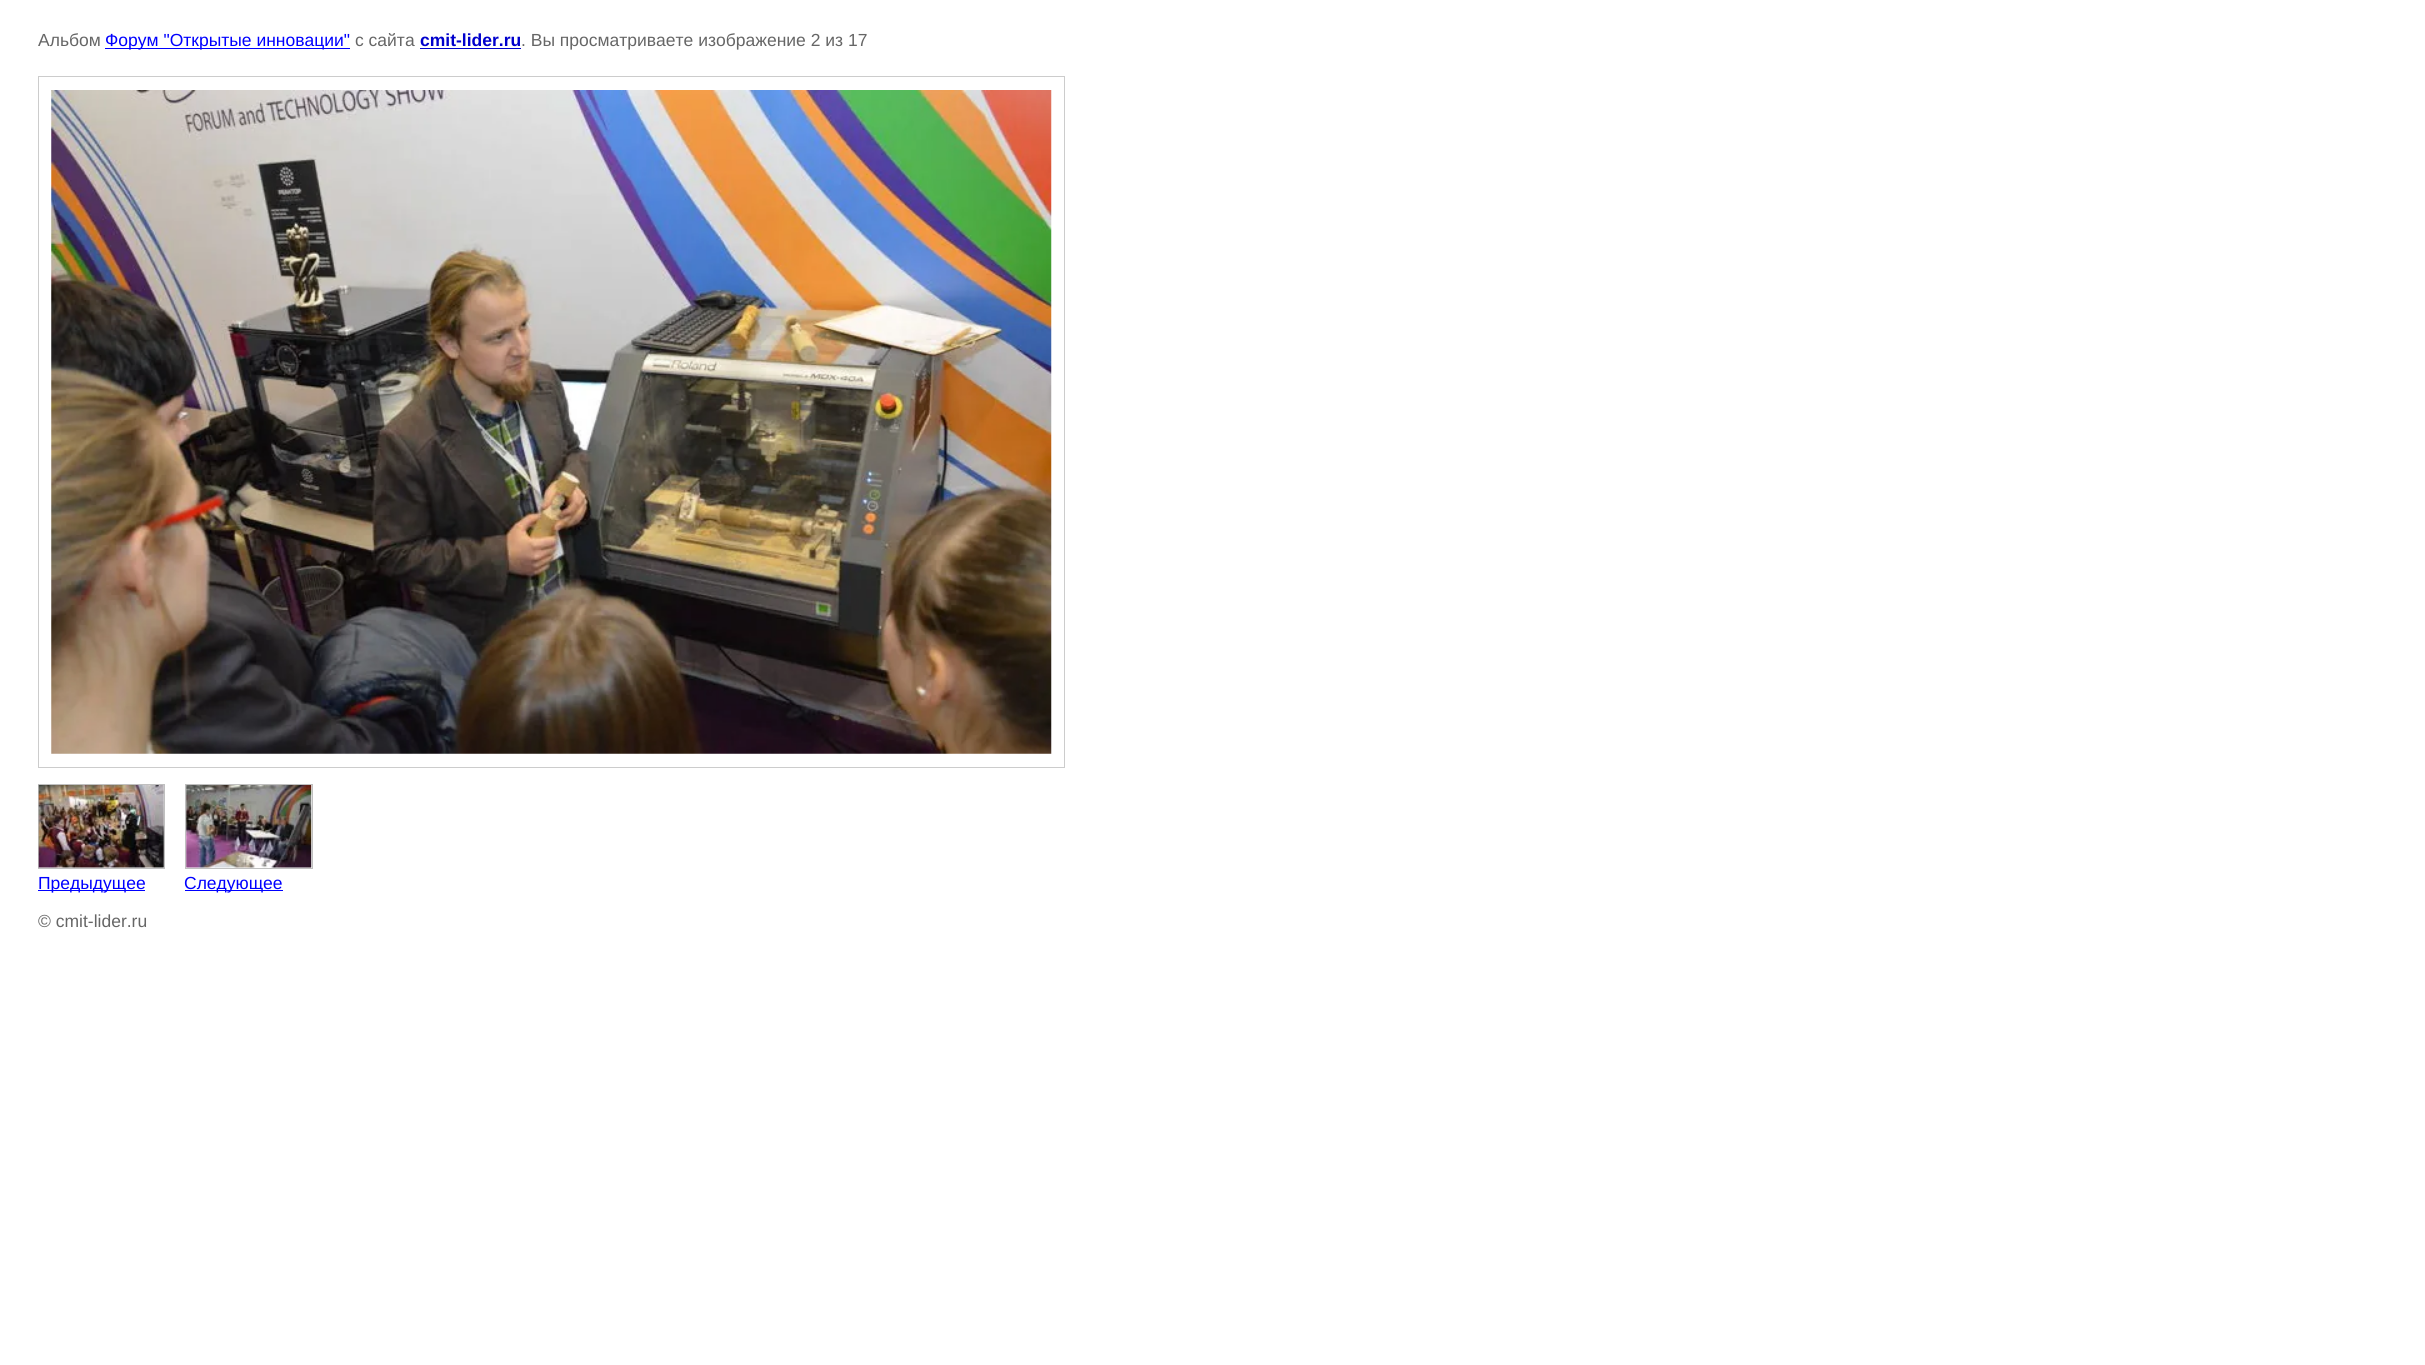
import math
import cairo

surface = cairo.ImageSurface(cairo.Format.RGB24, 2425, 1365)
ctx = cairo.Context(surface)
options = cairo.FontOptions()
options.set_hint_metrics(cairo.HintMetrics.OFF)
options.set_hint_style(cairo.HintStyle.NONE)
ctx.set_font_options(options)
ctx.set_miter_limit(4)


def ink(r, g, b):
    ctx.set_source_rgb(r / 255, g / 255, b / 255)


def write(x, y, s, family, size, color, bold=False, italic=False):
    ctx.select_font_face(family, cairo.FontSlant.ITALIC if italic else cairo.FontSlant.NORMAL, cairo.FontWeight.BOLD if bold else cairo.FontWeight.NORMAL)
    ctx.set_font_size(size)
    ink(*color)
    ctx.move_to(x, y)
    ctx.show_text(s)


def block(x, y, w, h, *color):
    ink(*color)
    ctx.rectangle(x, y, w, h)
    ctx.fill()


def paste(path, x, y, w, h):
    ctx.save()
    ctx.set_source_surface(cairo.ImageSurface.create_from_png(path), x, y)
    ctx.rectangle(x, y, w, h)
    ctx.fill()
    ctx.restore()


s1 = dict(family="Liberation Sans", size=17.5, color=(102, 102, 102))
s2 = dict(family="Liberation Sans", size=17.5, color=(0, 0, 255))
s3 = dict(family="Liberation Sans", size=17.5, color=(0, 0, 204), bold=True)

ink(255, 255, 255)
ctx.paint()
write(38, 46, "Альбом", **s1)
block(105, 48, 245, 1, 0, 0, 255)
write(105, 46, "Форум \"Открытые инновации\"", **s2)
write(355, 46, "с сайта", **s1)
write(420, 46, "cmit-lider.ru", **s3)
block(420, 48, 101, 1, 0, 0, 204)
write(521, 46, ". Вы просматриваете изображение 2 из 17", **s1)
ctx.rectangle(38.5, 76.5, 1026, 691)
ink(204, 204, 204)
ctx.set_line_width(1)
ctx.stroke()
paste("pic1.png", 51, 90, 1001, 664)
ctx.rectangle(38.5, 784.5, 126, 84)
ink(192, 192, 192)
ctx.stroke()
paste("pic2.png", 38, 785, 126, 83)
block(38, 890, 107, 1, 0, 0, 255)
write(38, 889, "Предыдущее", **s2)
ctx.rectangle(185.5, 784.5, 127, 84)
ink(192, 192, 192)
ctx.stroke()
paste("pic3.png", 186, 785, 126, 83)
block(185, 890, 98, 1, 0, 0, 255)
write(184, 889, "Следующее", **s2)
write(38, 927, "© cmit-lider.ru", **s1)
surface.write_to_png("screenshot.png")
